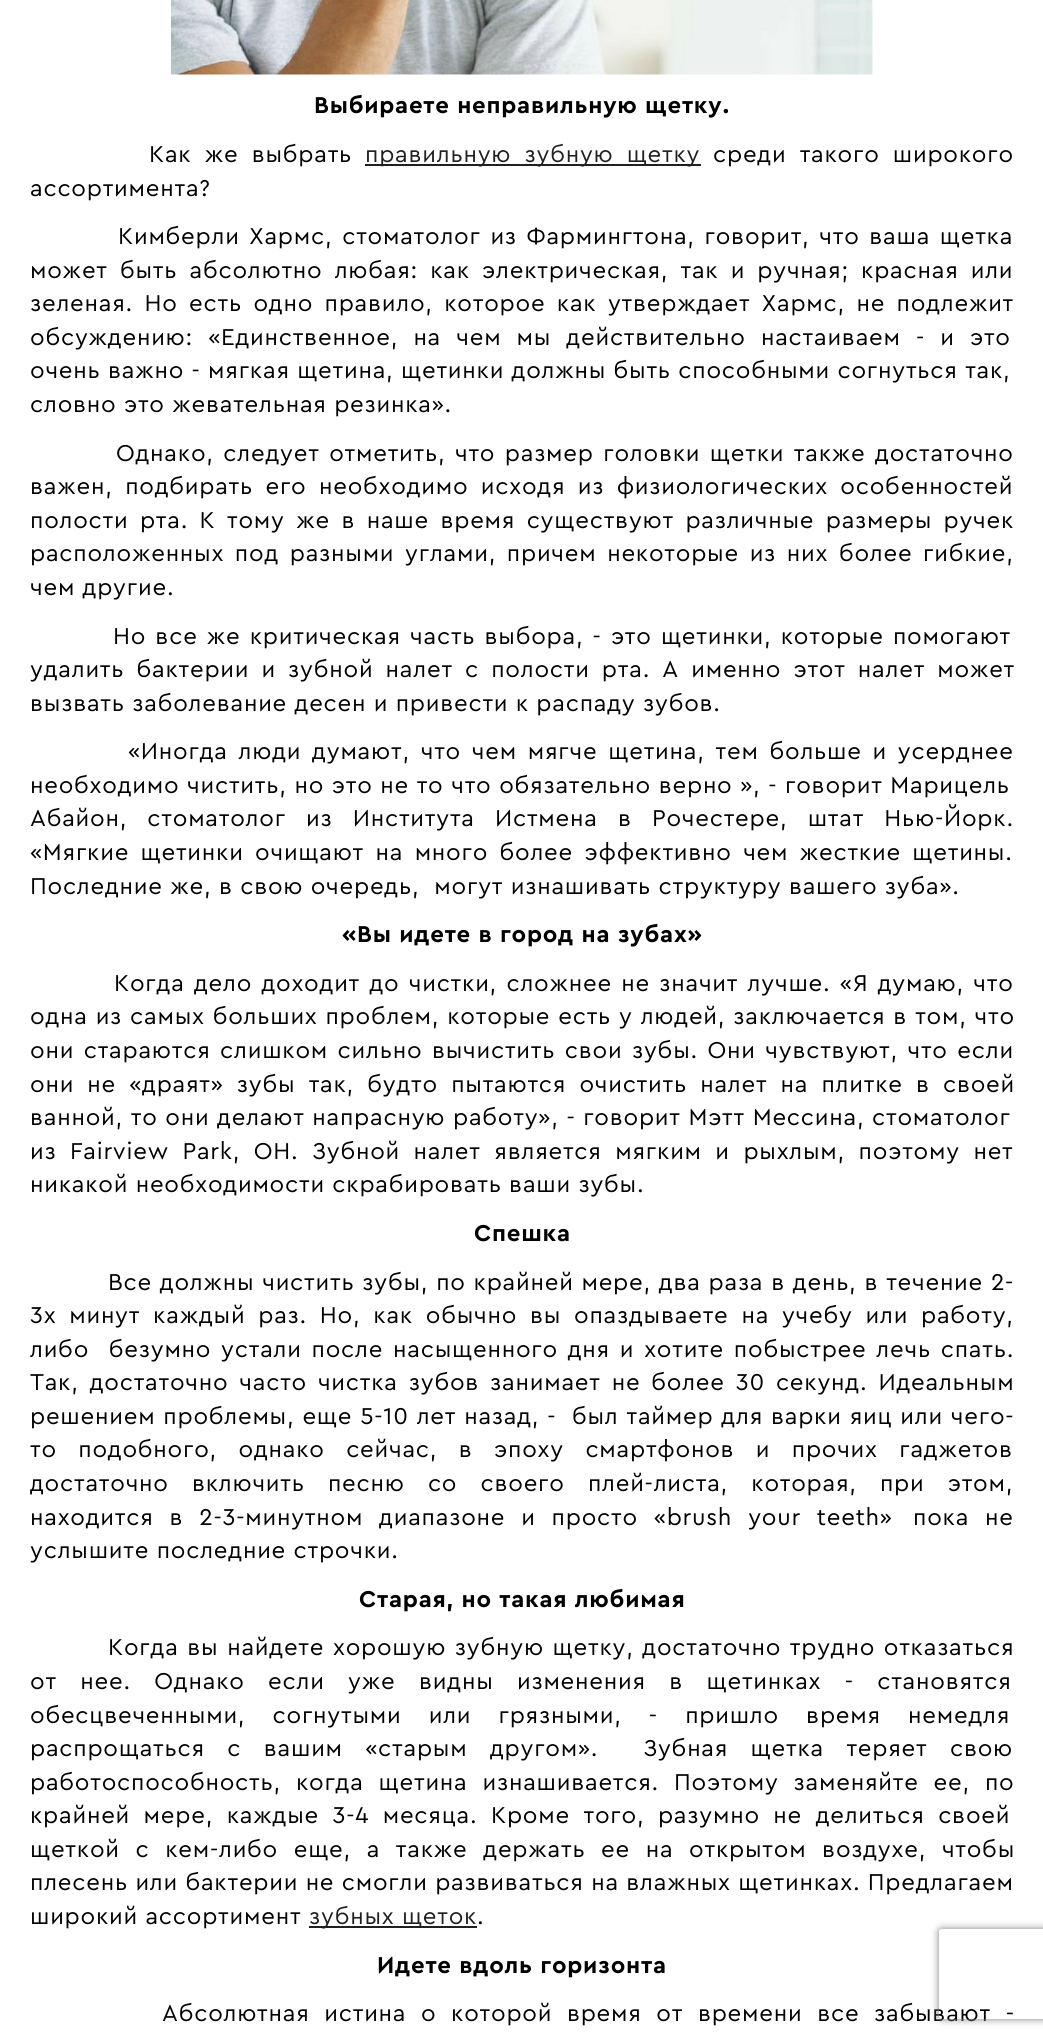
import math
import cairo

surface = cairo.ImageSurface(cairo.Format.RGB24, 1043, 2039)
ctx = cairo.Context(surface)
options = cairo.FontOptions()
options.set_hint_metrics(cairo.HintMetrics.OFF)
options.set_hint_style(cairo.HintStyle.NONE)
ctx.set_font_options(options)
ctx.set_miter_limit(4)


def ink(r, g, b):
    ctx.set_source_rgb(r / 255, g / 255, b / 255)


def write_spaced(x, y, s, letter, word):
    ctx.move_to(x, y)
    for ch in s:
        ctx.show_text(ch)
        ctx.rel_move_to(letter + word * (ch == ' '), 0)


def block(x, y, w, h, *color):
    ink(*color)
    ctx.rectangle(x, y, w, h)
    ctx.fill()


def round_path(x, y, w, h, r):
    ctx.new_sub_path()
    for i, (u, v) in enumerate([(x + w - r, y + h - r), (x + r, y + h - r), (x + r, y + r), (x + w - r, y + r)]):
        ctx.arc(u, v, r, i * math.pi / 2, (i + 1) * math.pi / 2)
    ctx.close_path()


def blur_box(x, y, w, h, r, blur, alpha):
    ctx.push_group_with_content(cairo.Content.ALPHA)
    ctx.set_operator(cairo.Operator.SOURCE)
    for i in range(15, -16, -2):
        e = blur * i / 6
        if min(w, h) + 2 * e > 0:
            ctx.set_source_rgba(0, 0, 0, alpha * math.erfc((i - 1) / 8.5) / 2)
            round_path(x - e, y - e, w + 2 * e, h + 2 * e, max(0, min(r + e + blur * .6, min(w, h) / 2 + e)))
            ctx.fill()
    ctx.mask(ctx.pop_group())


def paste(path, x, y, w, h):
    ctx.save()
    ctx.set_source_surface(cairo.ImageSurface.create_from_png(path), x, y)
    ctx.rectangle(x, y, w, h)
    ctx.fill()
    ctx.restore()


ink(255, 255, 255)
ctx.paint()
paste("pic1.png", 171, 0, 702, 75)
ctx.select_font_face("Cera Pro", cairo.FontSlant.NORMAL, cairo.FontWeight.BOLD)
ctx.set_font_size(24)
ink(0, 0, 0)
write_spaced(314, 113, "Выбираете неправильную щетку.", 0.75, 0)
ctx.select_font_face("Cera Pro")
write_spaced(149, 162, "Как же выбрать", 0.75, 5.75)
block(365, 164, 336, 2, 31, 32, 34)
write_spaced(365, 162, "правильную зубную щетку", 0.75, 5.75)
ink(0, 0, 0)
write_spaced(713, 162, "среди такого широкого", 0.75, 5.75)
write_spaced(30, 196, "ассортимента?", 0.75, 0)
write_spaced(118, 244, "Кимберли Хармс, стоматолог из Фармингтона, говорит, что ваша щетка", 0.75, 2.25)
write_spaced(30, 278, "может быть абсолютно любая: как электрическая, так и ручная; красная или", 0.75, 4.75)
write_spaced(30, 311, "зеленая. Но есть одно правило, которое как утверждает Хармс, не подлежит", 0.75, 4)
write_spaced(30, 345, "обсуждению: «Единственное, на чем мы действительно настаиваем - и это", 0.75, 7.75)
write_spaced(30, 378, "очень важно - мягкая щетина, щетинки должны быть способными согнуться так,", 0.75, 0)
write_spaced(30, 412, "словно это жевательная резинка».", 0.75, 0)
write_spaced(116, 461, "Однако, следует отметить, что размер головки щетки также достаточно", 0.75, 2.1)
write_spaced(30, 494, "важен, подбирать его необходимо исходя из физиологических особенностей", 0.75, 5)
write_spaced(30, 528, "полости рта. К тому же в наше время существуют различные размеры ручек", 0.75, 4)
write_spaced(30, 561, "расположенных под разными углами, причем некоторые из них более гибкие,", 0.75, 3.25)
write_spaced(30, 595, "чем другие.", 0.75, 0)
write_spaced(113, 644, "Но все же критическая часть выбора, - это щетинки, которые помогают", 0.75, 1.75)
write_spaced(30, 677, "удалить бактерии и зубной налет с полости рта. А именно этот налет может", 0.75, 4.75)
write_spaced(30, 711, "вызвать заболевание десен и привести к распаду зубов.", 0.75, 0)
write_spaced(128, 759, "«Иногда люди думают, что чем мягче щетина, тем больше и усерднее", 0.75, 3.4)
write_spaced(30, 793, "необходимо чистить, но это не то что обязательно верно », - говорит Марицель", 0.75, 0.25)
write_spaced(30, 826, "Абайон, стоматолог из Института Истмена в Рочестере, штат Нью-Йорк.", 0.75, 12.75)
write_spaced(30, 860, "«Мягкие щетинки очищают на много более эффективно чем жесткие щетины.", 0.75, 4)
write_spaced(30, 894, "Последние же, в свою очередь,  могут изнашивать структуру вашего зуба».", 0.75, 0)
ctx.select_font_face("Cera Pro", cairo.FontSlant.NORMAL, cairo.FontWeight.BOLD)
write_spaced(342, 942, "«Вы идете в город на зубах»", 0.75, 0)
ctx.select_font_face("Cera Pro")
write_spaced(114, 991, "Когда дело доходит до чистки, сложнее не значит лучше. «Я думаю, что", 0.75, 1.9)
write_spaced(30, 1024, "одна из самых больших проблем, которые есть у людей, заключается в том, что", 0.75, 0.5)
write_spaced(30, 1058, "они стараются слишком сильно вычистить свои зубы. Они чувствуют, что если", 0.75, 2.1)
write_spaced(30, 1092, "они не «драят» зубы так, будто пытаются очистить налет на плитке в своей", 0.75, 5.75)
write_spaced(30, 1125, "ванной, то они делают напрасную работу», - говорит Мэтт Мессина, стоматолог", 0.75, 0.25)
write_spaced(30, 1159, "из Fairview Park, OH. Зубной налет является мягким и рыхлым, поэтому нет", 0.75, 6.1)
write_spaced(30, 1192, "никакой необходимости скрабировать ваши зубы.", 0.75, 0)
ctx.select_font_face("Cera Pro", cairo.FontSlant.NORMAL, cairo.FontWeight.BOLD)
write_spaced(474, 1241, "Спешка", 0.75, 0)
ctx.select_font_face("Cera Pro")
write_spaced(108, 1290, "Все должны чистить зубы, по крайней мере, два раза в день, в течение 2-", 0.75, 0.4)
write_spaced(30, 1323, "3х минут каждый раз. Но, как обычно вы опаздываете на учебу или работу,", 0.75, 5.4)
write_spaced(30, 1357, "либо  безумно устали после насыщенного дня и хотите побыстрее лечь спать.", 0.75, 2.4)
write_spaced(30, 1390, "Так, достаточно часто чистка зубов занимает не более 30 секунд. Идеальным", 0.75, 3.5)
write_spaced(30, 1424, "решением проблемы, еще 5-10 лет назад, -", 0.75, 0.5)
write_spaced(572, 1424, "был таймер для варки яиц или чего-", 0.75, 0.5)
write_spaced(30, 1457, "то подобного, однако сейчас, в эпоху смартфонов и прочих гаджетов", 0.75, 14)
write_spaced(30, 1491, "достаточно включить песню со своего плей-листа, которая, при этом,", 0.75, 15.75)
write_spaced(30, 1525, "находится в 2-3-минутном диапазоне и просто «brush your teeth»", 0.75, 8.5)
write_spaced(913, 1525, "пока не", 0.75, 8.5)
write_spaced(30, 1558, "услышите последние строчки.", 0.75, 0)
ctx.select_font_face("Cera Pro", cairo.FontSlant.NORMAL, cairo.FontWeight.BOLD)
write_spaced(359, 1607, "Старая, но такая любимая", 0.75, 0)
ctx.select_font_face("Cera Pro")
write_spaced(108, 1655, "Когда вы найдете хорошую зубную щетку, достаточно трудно отказаться", 0.75, 1.25)
write_spaced(30, 1689, "от нее. Однако если уже видны изменения в щетинках - становятся", 0.75, 16)
write_spaced(30, 1723, "обесцвеченными, согнутыми или грязными, - пришло время немедля", 0.75, 19.75)
write_spaced(30, 1756, "распрощаться с вашим «старым другом».  Зубная щетка теряет свою", 0.75, 15)
write_spaced(30, 1790, "работоспособность, когда щетина изнашивается. Поэтому заменяйте ее, по", 0.75, 7.5)
write_spaced(30, 1823, "крайней мере, каждые 3-4 месяца. Кроме того, разумно не делиться своей", 0.75, 6.1)
write_spaced(30, 1857, "щеткой с кем-либо еще, а также держать ее на открытом воздухе, чтобы", 0.75, 8.25)
write_spaced(30, 1890, "плесень или бактерии не смогли развиваться на влажных щетинках. Предлагаем", 0.75, 0)
write_spaced(30, 1924, "широкий ассортимент", 0.75, 0)
block(309, 1926, 168, 2, 31, 32, 34)
write_spaced(309, 1924, "зубных щеток", 0.75, 0)
ink(0, 0, 0)
write_spaced(477, 1924, ".", 0.75, 0)
ctx.select_font_face("Cera Pro", cairo.FontSlant.NORMAL, cairo.FontWeight.BOLD)
write_spaced(377, 1973, "Идете вдоль горизонта", 0.75, 0)
ctx.select_font_face("Cera Pro")
write_spaced(162, 2021, "Абсолютная истина о которой время от времени все забывают -", 0.75, 7.25)
ctx.save()
ctx.set_fill_rule(cairo.FillRule.EVEN_ODD)
ctx.new_path()
ctx.move_to(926, 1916)
ctx.line_to(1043, 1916)
ctx.line_to(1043, 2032)
ctx.line_to(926, 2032)
ctx.close_path()
ctx.move_to(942, 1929)
ctx.line_to(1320, 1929)
ctx.curve_to(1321.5, 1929, 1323, 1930.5, 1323, 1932)
ctx.line_to(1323, 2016)
ctx.curve_to(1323, 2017.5, 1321.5, 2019, 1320, 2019)
ctx.line_to(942, 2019)
ctx.curve_to(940.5, 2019, 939, 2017.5, 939, 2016)
ctx.line_to(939, 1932)
ctx.curve_to(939, 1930.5, 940.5, 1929, 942, 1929)
ctx.close_path()
ctx.clip()
ink(128, 128, 128)
blur_box(939, 1929, 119, 90, 3, 4, 1)
ctx.restore()
surface.write_to_png("screenshot.png")
